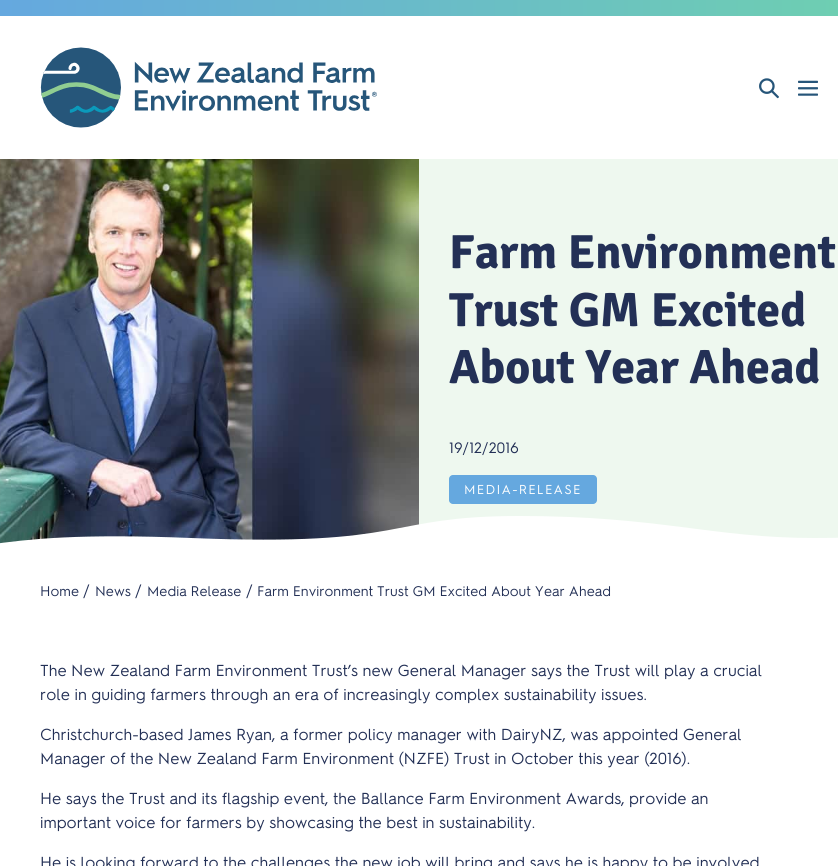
import math
import cairo

surface = cairo.ImageSurface(cairo.Format.RGB24, 838, 866)
ctx = cairo.Context(surface)
options = cairo.FontOptions()
options.set_hint_metrics(cairo.HintMetrics.OFF)
options.set_hint_style(cairo.HintStyle.NONE)
ctx.set_font_options(options)
ctx.set_miter_limit(4)


def ink(r, g, b):
    ctx.set_source_rgb(r / 255, g / 255, b / 255)


def write(x, y, s, family, size, color, bold=False, italic=False):
    ctx.select_font_face(family, cairo.FontSlant.ITALIC if italic else cairo.FontSlant.NORMAL, cairo.FontWeight.BOLD if bold else cairo.FontWeight.NORMAL)
    ctx.set_font_size(size)
    ink(*color)
    ctx.move_to(x, y)
    ctx.show_text(s)


def write_spaced(x, y, s, letter, word):
    ctx.move_to(x, y)
    for ch in s:
        ctx.show_text(ch)
        ctx.rel_move_to(letter + word * (ch == ' '), 0)


def block(x, y, w, h, *color):
    ink(*color)
    ctx.rectangle(x, y, w, h)
    ctx.fill()


def round_path(x, y, w, h, r):
    ctx.new_sub_path()
    for i, (u, v) in enumerate([(x + w - r, y + h - r), (x + r, y + h - r), (x + r, y + r), (x + w - r, y + r)]):
        ctx.arc(u, v, r, i * math.pi / 2, (i + 1) * math.pi / 2)
    ctx.close_path()


def paste(path, x, y, w, h):
    ctx.save()
    ctx.set_source_surface(cairo.ImageSurface.create_from_png(path), x, y)
    ctx.rectangle(x, y, w, h)
    ctx.fill()
    ctx.restore()


s1 = dict(family="Signika", size=48, color=(35, 48, 86), bold=True)
s2 = dict(family="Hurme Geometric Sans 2", size=15, color=(35, 48, 86))
s3 = dict(family="Hurme Geometric Sans 2", size=14, color=(35, 48, 86))
s4 = dict(family="Hurme Geometric Sans 2", size=16, color=(35, 48, 86))

ink(255, 255, 255)
ctx.paint()
gradient = cairo.LinearGradient(0, 8, 838, 8)
gradient.add_color_stop_rgba(0, 0.396, 0.659, 0.875, 1)
gradient.add_color_stop_rgba(1, 0.431, 0.808, 0.698, 1)
ctx.set_source(gradient)
ctx.rectangle(0, 0, 838, 16)
ctx.fill()
paste("pic1.png", 40, 47, 337, 81)
paste("pic2.png", 759, 78, 20, 21)
paste("pic3.png", 798, 80, 20, 16)
block(419, 159, 419, 379, 238, 248, 239)
paste("pic4.png", 0, 159, 419, 385)
write(449, 268, "Farm Environment", **s1)
write(449, 326, "Trust GM Excited", **s1)
write(449, 383, "About Year Ahead", **s1)
write(449, 453, "19/12/2016", **s2)
ink(101, 168, 223)
round_path(449, 475, 148, 29, 4)
ctx.fill()
ctx.set_font_size(13)
ink(255, 255, 255)
write_spaced(464, 494, "MEDIA-RELEASE", 1.25, 0)
ctx.save()
ctx.rectangle(0, 514, 838, 49)
ctx.clip()
ctx.new_path()
ctx.move_to(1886, 564)
ctx.line_to(-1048, 564)
ctx.curve_to(-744, 564, -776, 534, -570, 534)
ctx.curve_to(-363, 534, -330, 559, -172, 559)
ctx.curve_to(-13, 559, -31, 529, 191, 538)
ctx.curve_to(413, 547, 382, 516, 520, 516)
ctx.curve_to(659, 516, 713, 538, 814, 538)
ctx.curve_to(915, 538, 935, 526, 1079, 529)
ctx.curve_to(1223, 532, 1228, 555, 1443, 548)
ctx.curve_to(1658, 541, 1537, 564, 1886, 564)
ctx.close_path()
ctx.fill()
ctx.restore()
write(40, 596, "Home", **s3)
write(83, 596, "/", **s4)
write(95, 596, "News", **s3)
write(135, 596, "/", **s4)
write(147, 596, "Media Release", **s3)
write(246, 596, "/", **s4)
write(257, 596, "Farm Environment Trust GM Excited About Year Ahead", **s3)
write(40, 676, "The New Zealand Farm Environment Trust’s new General Manager says the Trust will play a crucial", **s4)
write(40, 700, "role in guiding farmers through an era of increasingly complex sustainability issues.", **s4)
write(40, 740, "Christchurch-based James Ryan, a former policy manager with DairyNZ, was appointed General", **s4)
write(40, 764, "Manager of the New Zealand Farm Environment (NZFE) Trust in October this year (2016).", **s4)
write(40, 804, "He says the Trust and its flagship event, the Ballance Farm Environment Awards, provide an", **s4)
write(40, 828, "important voice for farmers by showcasing the best in sustainability.", **s4)
write(40, 868, "He is looking forward to the challenges the new job will bring and says he is happy to be involved", **s4)
surface.write_to_png("screenshot.png")
